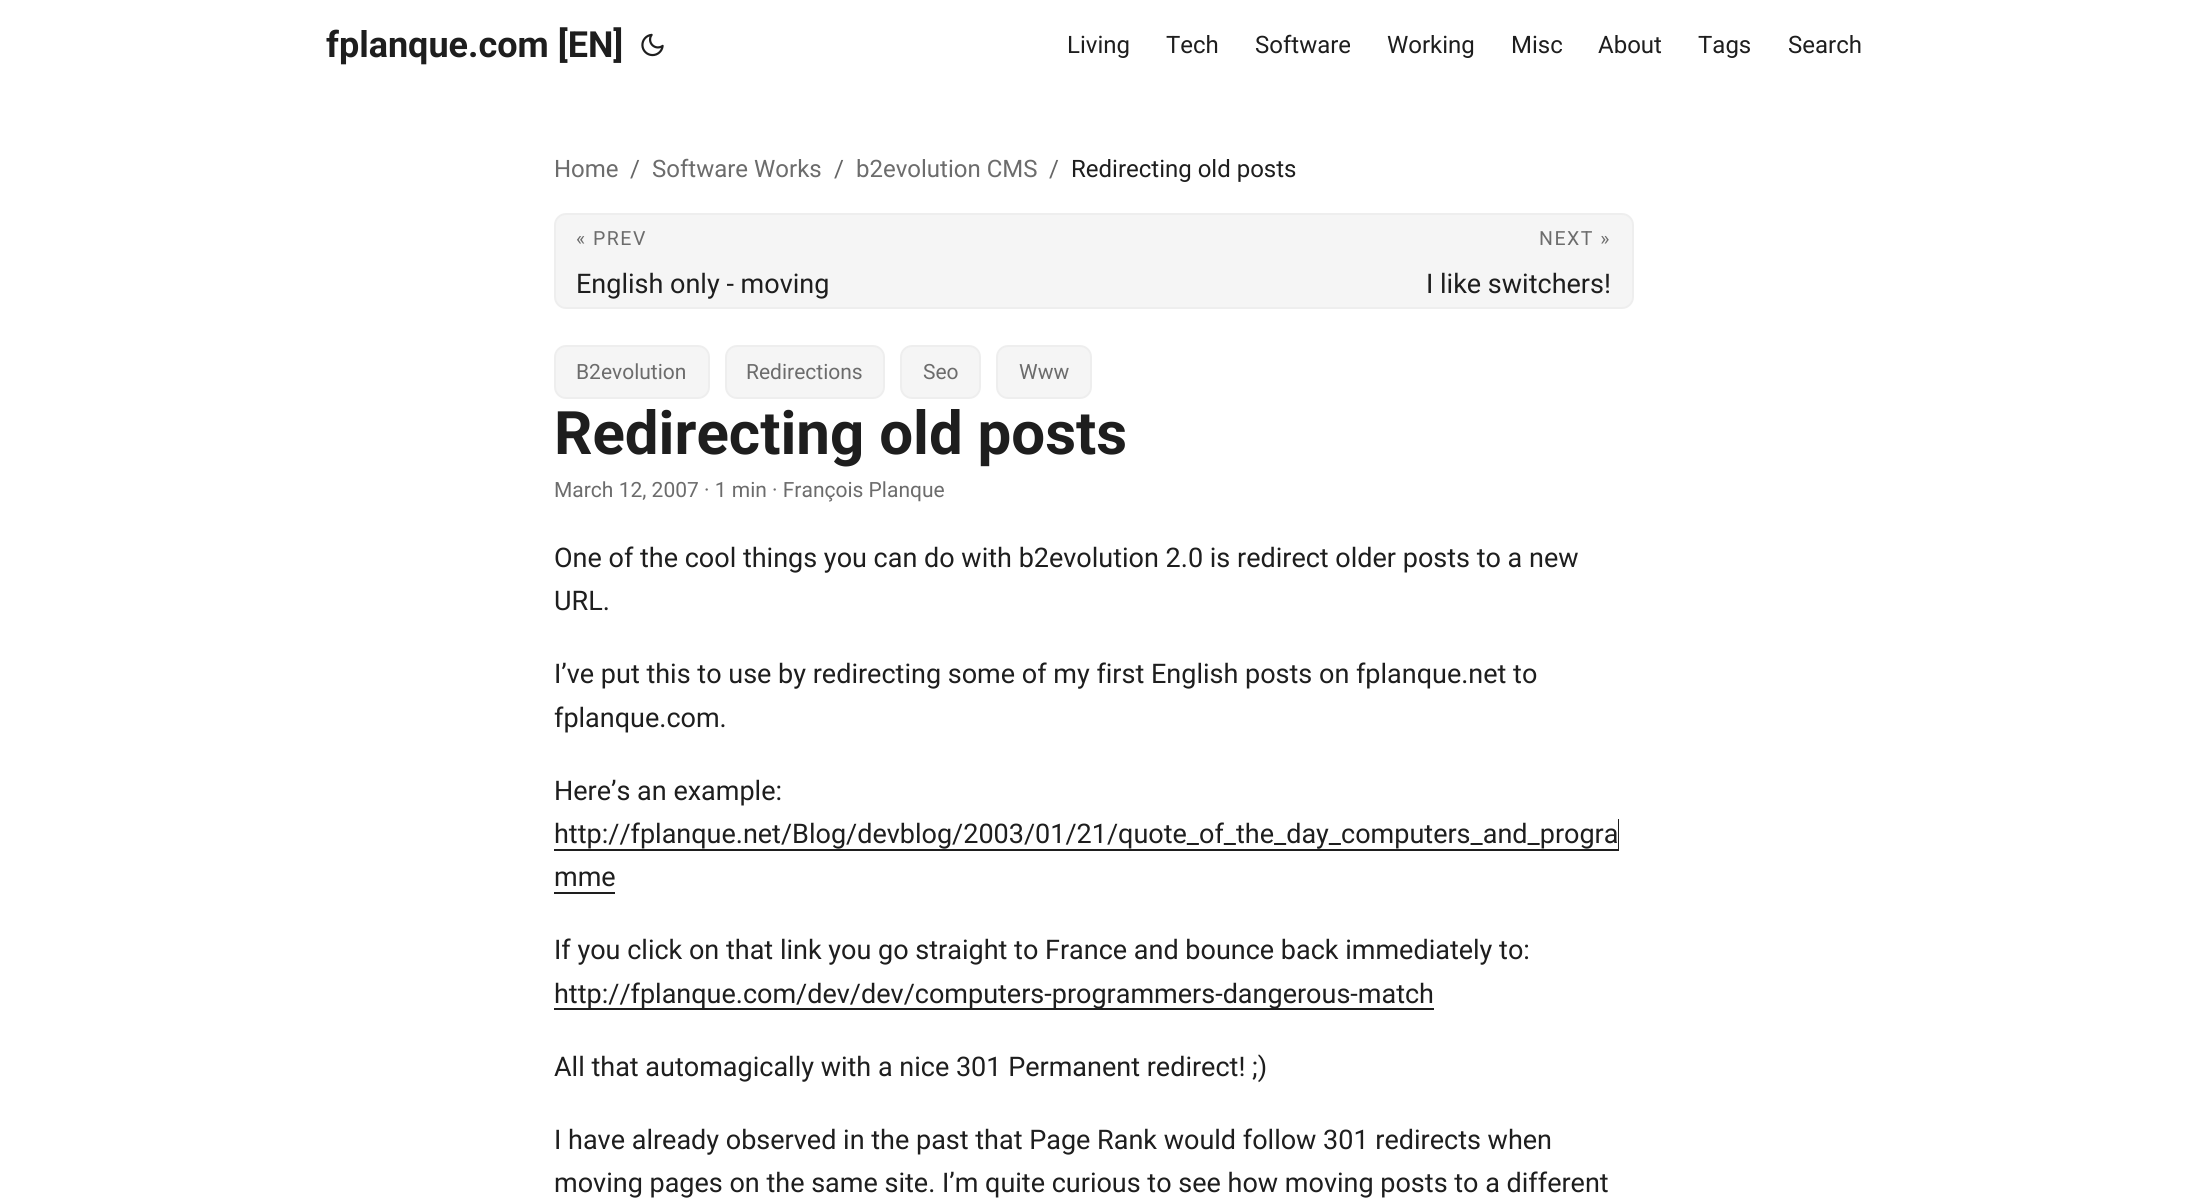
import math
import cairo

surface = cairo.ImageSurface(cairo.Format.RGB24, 2186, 1202)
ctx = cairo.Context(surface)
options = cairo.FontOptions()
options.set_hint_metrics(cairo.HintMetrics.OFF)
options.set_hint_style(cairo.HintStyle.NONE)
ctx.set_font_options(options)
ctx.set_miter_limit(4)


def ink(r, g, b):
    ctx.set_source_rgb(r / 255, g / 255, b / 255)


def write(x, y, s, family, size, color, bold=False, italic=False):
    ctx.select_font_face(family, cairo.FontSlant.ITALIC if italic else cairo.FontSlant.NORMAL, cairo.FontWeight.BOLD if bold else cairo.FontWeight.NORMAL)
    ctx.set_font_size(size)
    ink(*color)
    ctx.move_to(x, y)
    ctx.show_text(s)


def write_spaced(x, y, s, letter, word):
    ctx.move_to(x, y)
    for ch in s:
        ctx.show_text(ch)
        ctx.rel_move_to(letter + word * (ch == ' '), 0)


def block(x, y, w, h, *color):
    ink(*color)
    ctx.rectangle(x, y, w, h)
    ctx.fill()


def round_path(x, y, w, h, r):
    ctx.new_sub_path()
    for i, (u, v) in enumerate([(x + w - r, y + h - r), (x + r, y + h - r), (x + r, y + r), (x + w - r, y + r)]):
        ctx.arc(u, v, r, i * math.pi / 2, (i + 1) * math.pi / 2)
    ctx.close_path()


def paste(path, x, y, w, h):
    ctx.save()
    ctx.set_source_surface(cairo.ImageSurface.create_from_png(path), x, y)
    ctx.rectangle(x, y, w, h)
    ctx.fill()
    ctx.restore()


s1 = dict(family="Roboto", size=36, color=(30, 30, 30), bold=True)
s2 = dict(family="Roboto", size=24, color=(30, 30, 30))
s3 = dict(family="Roboto", size=24, color=(108, 108, 108))
s4 = dict(family="Roboto", size=24, color=(102, 102, 102))
s5 = dict(family="Roboto", size=27, color=(30, 30, 30))
s6 = dict(family="Roboto", size=21, color=(108, 108, 108))
s7 = dict(family="Roboto", size=60, color=(30, 30, 30), bold=True)

ink(255, 255, 255)
ctx.paint()
write(326, 57, "fplanque.com [EN]", **s1)
paste("pic1.png", 641, 33, 23, 24)
write(1067, 53, "Living", **s2)
write(1166, 53, "Tech", **s2)
write(1255, 53, "Software", **s2)
write(1387, 53, "Working", **s2)
write(1511, 53, "Misc", **s2)
write(1598, 53, "About", **s2)
write(1698, 53, "Tags", **s2)
write(1788, 53, "Search", **s2)
write(554, 177, "Home", **s3)
write(630, 177, "/", **s4)
write(652, 177, "Software Works", **s3)
write(834, 177, "/", **s4)
write(856, 177, "b2evolution CMS", **s3)
write(1049, 177, "/", **s4)
write(1071, 177, "Redirecting old posts", **s2)
ink(245, 245, 245)
round_path(555, 214, 1078, 94, 11)
ctx.fill_preserve()
ink(238, 238, 238)
ctx.stroke()
ctx.set_font_size(19.5)
ink(108, 108, 108)
write_spaced(576, 245, "« PREV", 1.5, 0)
write(576, 293, "English only - moving", **s5)
ctx.set_font_size(19.5)
ink(108, 108, 108)
write_spaced(1539, 245, "NEXT »", 1.5, 0)
write(1426, 293, "I like switchers!", **s5)
ink(245, 245, 245)
round_path(555, 346, 154, 52, 11)
ctx.fill_preserve()
ink(238, 238, 238)
ctx.stroke()
write(576, 379, "B2evolution", **s6)
ink(245, 245, 245)
round_path(726, 346, 158, 52, 11)
ctx.fill_preserve()
ink(238, 238, 238)
ctx.stroke()
write(746, 379, "Redirections", **s6)
ink(245, 245, 245)
round_path(901, 346, 79, 52, 11)
ctx.fill_preserve()
ink(238, 238, 238)
ctx.stroke()
write(923, 379, "Seo", **s6)
ink(245, 245, 245)
round_path(997, 346, 94, 52, 11)
ctx.fill_preserve()
ink(238, 238, 238)
ctx.stroke()
write(1019, 379, "Www", **s6)
write(554, 454, "Redirecting old posts", **s7)
write(554, 497, "March 12, 2007 · 1 min · François Planque", **s6)
write(554, 567, "One of the cool things you can do with b2evolution 2.0 is redirect older posts to a new", **s5)
write(554, 610, "URL.", **s5)
write(554, 683, "I’ve put this to use by redirecting some of my first English posts on fplanque.net to", **s5)
write(554, 727, "fplanque.com.", **s5)
write(554, 800, "Here’s an example:", **s5)
ctx.new_path()
ctx.move_to(554, 849)
ctx.line_to(554, 851)
ctx.line_to(1619, 851)
ctx.line_to(1619, 819)
ctx.line_to(1618, 819)
ctx.line_to(1618, 849)
ctx.close_path()
ctx.fill()
write(554, 843, "http://fplanque.net/Blog/devblog/2003/01/21/quote_of_the_day_computers_and_progra", **s5)
write(554, 886, "mme", **s5)
block(554, 892, 61, 2, 30, 30, 30)
write(554, 959, "If you click on that link you go straight to France and bounce back immediately to:", **s5)
block(554, 1008, 880, 2, 30, 30, 30)
write(554, 1003, "http://fplanque.com/dev/dev/computers-programmers-dangerous-match", **s5)
write(554, 1076, "All that automagically with a nice 301 Permanent redirect! ;)", **s5)
write(554, 1149, "I have already observed in the past that Page Rank would follow 301 redirects when", **s5)
write(554, 1192, "moving pages on the same site. I’m quite curious to see how moving posts to a different", **s5)
surface.write_to_png("screenshot.png")
